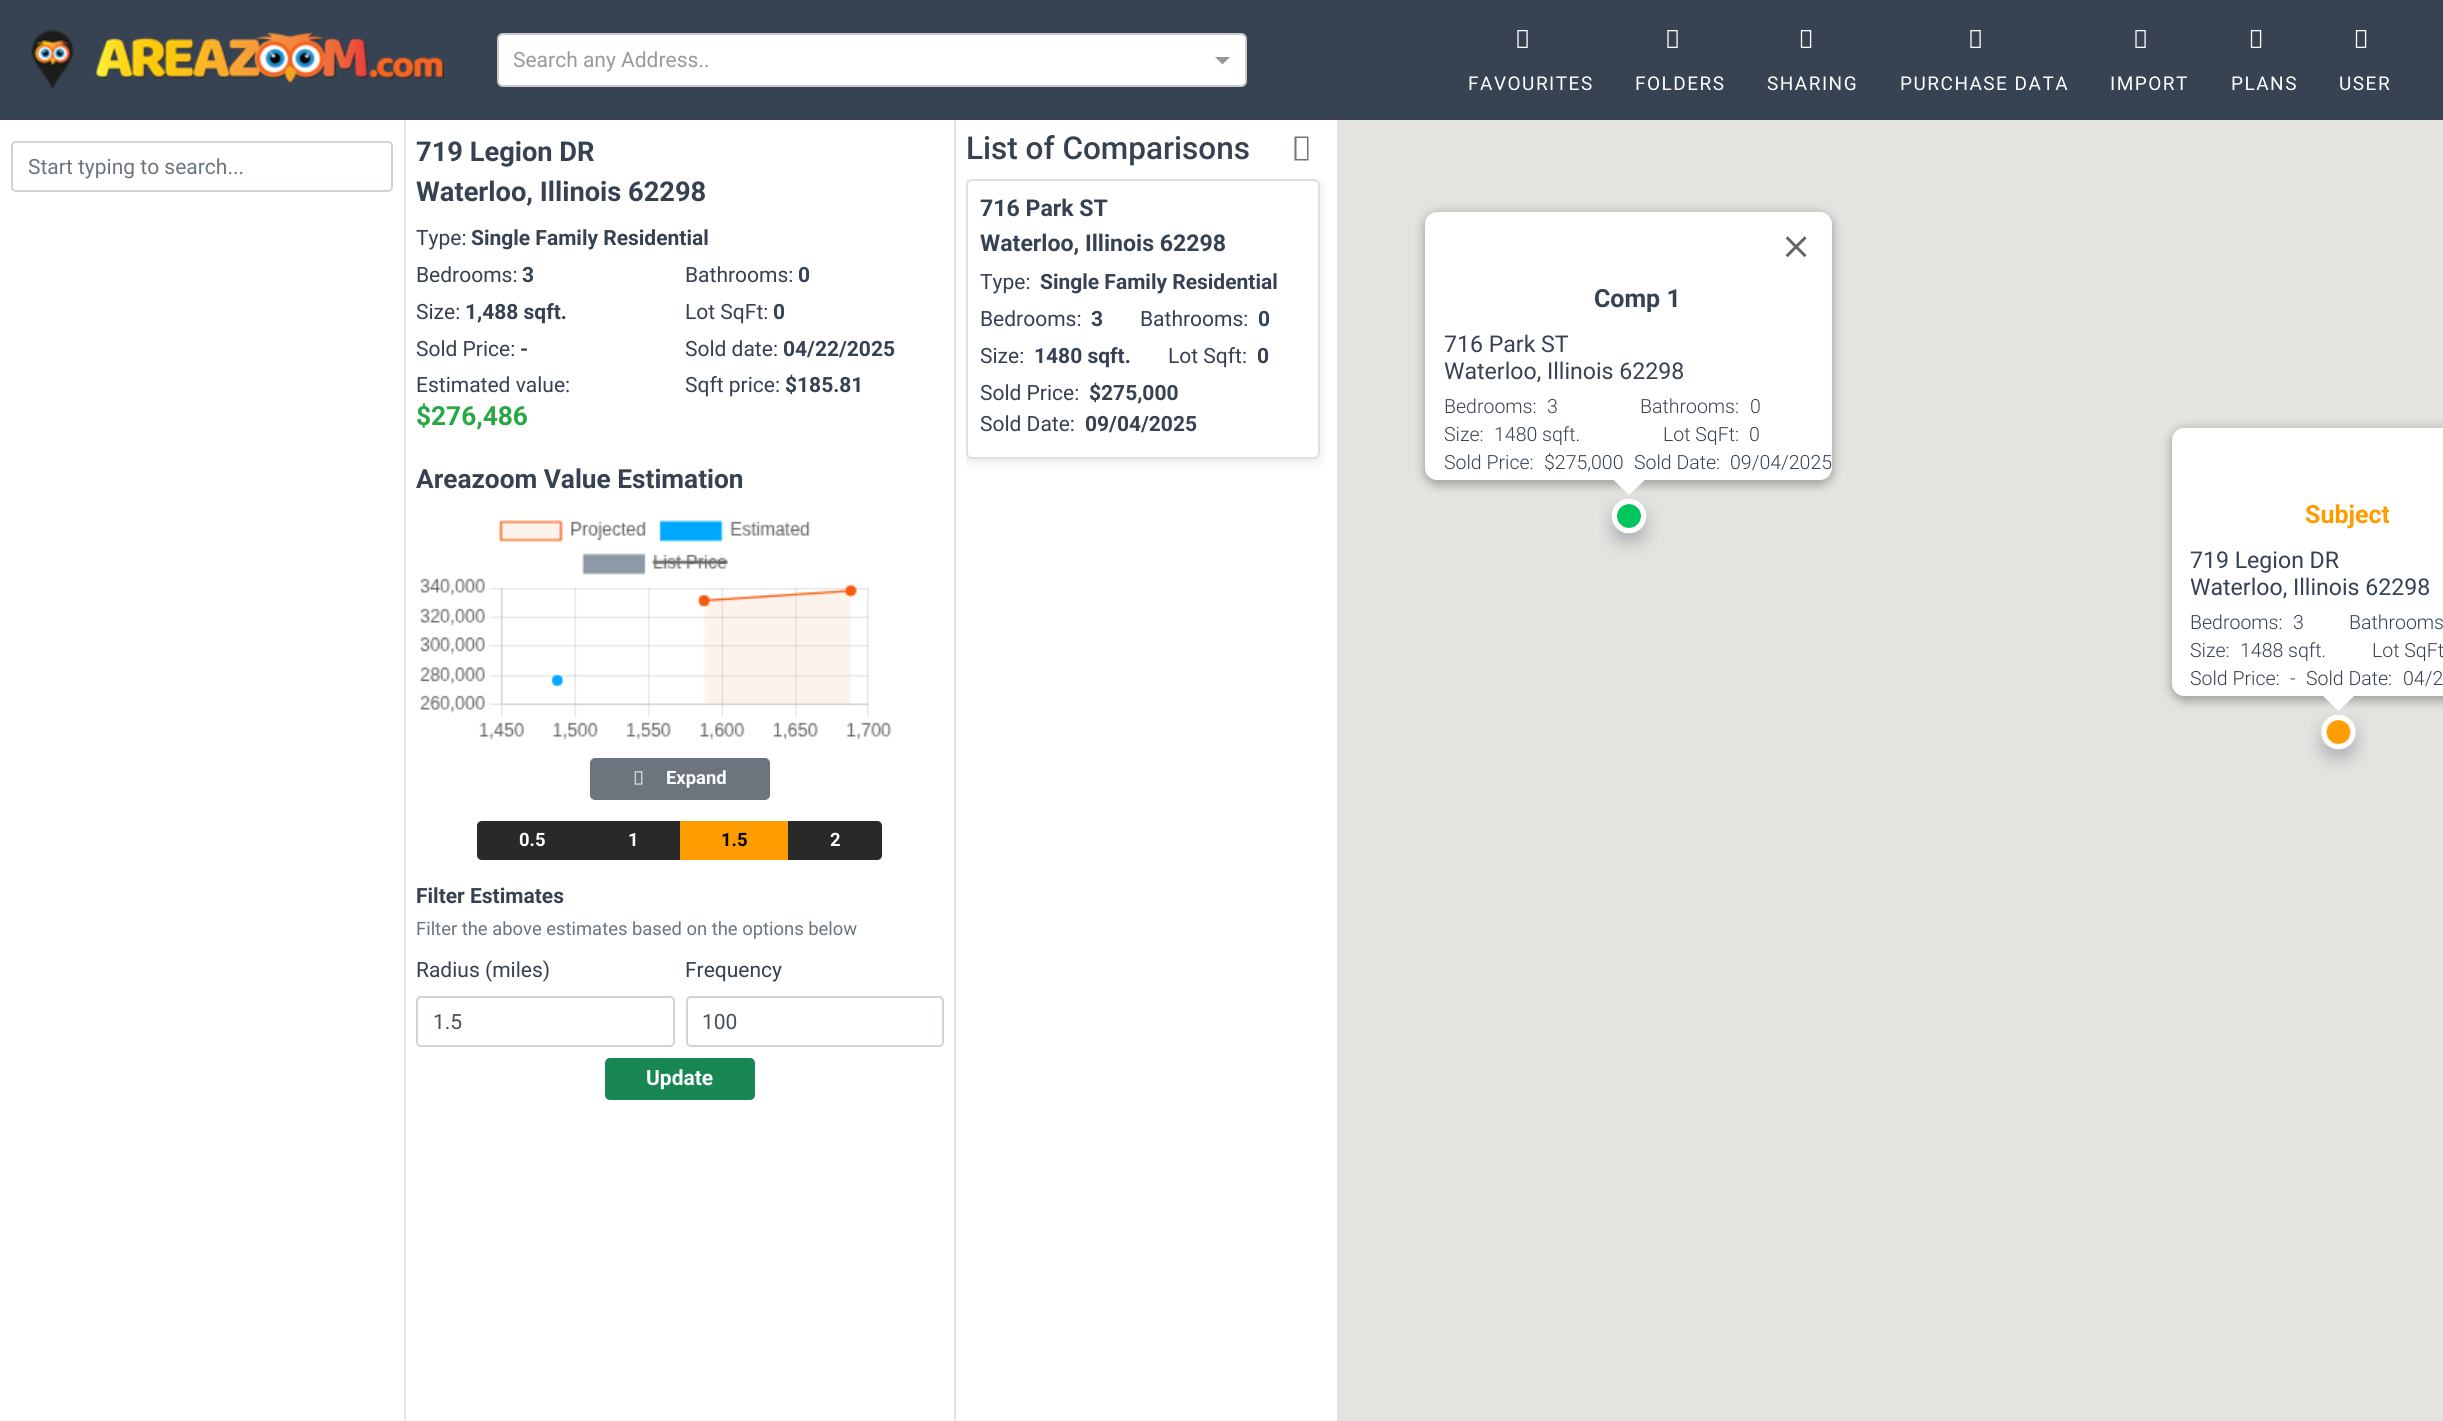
import math
import cairo

surface = cairo.ImageSurface(cairo.Format.RGB24, 2443, 1421)
ctx = cairo.Context(surface)
options = cairo.FontOptions()
options.set_hint_metrics(cairo.HintMetrics.OFF)
options.set_hint_style(cairo.HintStyle.NONE)
ctx.set_font_options(options)
ctx.set_miter_limit(4)


def ink(r, g, b):
    ctx.set_source_rgb(r / 255, g / 255, b / 255)


def write(x, y, s, family, size, color, bold=False, italic=False):
    ctx.select_font_face(family, cairo.FontSlant.ITALIC if italic else cairo.FontSlant.NORMAL, cairo.FontWeight.BOLD if bold else cairo.FontWeight.NORMAL)
    ctx.set_font_size(size)
    ink(*color)
    ctx.move_to(x, y)
    ctx.show_text(s)


def write_spaced(x, y, s, letter, word):
    ctx.move_to(x, y)
    for ch in s:
        ctx.show_text(ch)
        ctx.rel_move_to(letter + word * (ch == ' '), 0)


def block(x, y, w, h, *color):
    ink(*color)
    ctx.rectangle(x, y, w, h)
    ctx.fill()


def round_path(x, y, w, h, r):
    ctx.new_sub_path()
    for i, (u, v) in enumerate([(x + w - r, y + h - r), (x + r, y + h - r), (x + r, y + r), (x + w - r, y + r)]):
        ctx.arc(u, v, r, i * math.pi / 2, (i + 1) * math.pi / 2)
    ctx.close_path()


def blur_box(x, y, w, h, r, blur, alpha):
    ctx.push_group_with_content(cairo.Content.ALPHA)
    ctx.set_operator(cairo.Operator.SOURCE)
    for i in range(15, -16, -2):
        e = blur * i / 6
        if min(w, h) + 2 * e > 0:
            ctx.set_source_rgba(0, 0, 0, alpha * math.erfc((i - 1) / 8.5) / 2)
            round_path(x - e, y - e, w + 2 * e, h + 2 * e, max(0, min(r + e + blur * .6, min(w, h) / 2 + e)))
            ctx.fill()
    ctx.mask(ctx.pop_group())


def paste(path, x, y, w, h):
    ctx.save()
    ctx.set_source_surface(cairo.ImageSurface.create_from_png(path), x, y)
    ctx.rectangle(x, y, w, h)
    ctx.fill()
    ctx.restore()


s1 = dict(family="Roboto", size=21, color=(153, 153, 153))
s2 = dict(family="Roboto", size=21, color=(108, 117, 125))
s3 = dict(family="Roboto", size=27.25, color=(54, 65, 81), bold=True)
s4 = dict(family="Roboto", size=21, color=(54, 65, 81))
s5 = dict(family="Roboto", size=21, color=(54, 65, 81), bold=True)
s6 = dict(family="Roboto", size=26.25, color=(40, 167, 69), bold=True)
s7 = dict(family="Roboto", size=26.25, color=(54, 65, 81), bold=True)
s8 = dict(family="Roboto", size=18.4, color=(255, 255, 255), bold=True)
s9 = dict(family="Roboto", size=18.4, color=(0, 0, 0), bold=True)
s10 = dict(family="Roboto", size=18.4, color=(108, 117, 125))
s11 = dict(family="Roboto", size=21, color=(73, 80, 87))
s12 = dict(family="Roboto", size=21, color=(255, 255, 255), bold=True)
s13 = dict(family="Roboto Medium", size=31.5, color=(54, 65, 81))
s14 = dict(family="Roboto", size=23.1, color=(54, 65, 81), bold=True)
s15 = dict(family="Roboto", size=25, color=(54, 65, 81), bold=True)
s16 = dict(family="Roboto", size=23.1, color=(54, 65, 81))
s17 = dict(family="Roboto Light", size=19.5, color=(54, 65, 81))
s18 = dict(family="Roboto", size=25, color=(255, 157, 0), bold=True)

ink(255, 255, 255)
ctx.paint()
block(0, 0, 2443, 120, 55, 66, 82)
paste("pic1.png", 31, 30, 413, 59)
ink(255, 255, 255)
round_path(498, 34, 748, 52, 5)
ctx.fill_preserve()
ink(204, 204, 204)
ctx.stroke()
write(513, 67, "Search any Address..", **s1)
ctx.new_path()
ctx.move_to(1215, 57)
ctx.line_to(1230, 57)
ctx.line_to(1222.5, 64.5)
ctx.close_path()
ctx.fill()
paste("pic2.png", 1517, 30, 11, 18)
ctx.set_font_size(19)
ink(255, 255, 255)
write_spaced(1468, 90, "FAVOURITES", 1.5, 0)
paste("pic2.png", 1667, 30, 11, 18)
write_spaced(1635, 90, "FOLDERS", 1.5, 0)
paste("pic3.png", 1800, 30, 12, 18)
write_spaced(1767, 90, "SHARING", 1.5, 0)
paste("pic2.png", 1970, 30, 11, 18)
write_spaced(1900, 90, "PURCHASE DATA", 1.5, 0)
paste("pic2.png", 2135, 30, 11, 18)
write_spaced(2110, 90, "IMPORT", 1.5, 0)
paste("pic3.png", 2250, 30, 12, 18)
write_spaced(2231, 90, "PLANS", 1.5, 0)
paste("pic3.png", 2355, 30, 12, 18)
write_spaced(2339, 90, "USER", 1.5, 0)
block(404, 120, 2, 1301, 230, 230, 230)
round_path(12, 142, 380, 49, 4)
ink(206, 212, 218)
ctx.stroke()
write(28, 174, "Start typing to search...", **s2)
block(954, 120, 2, 1301, 222, 226, 230)
write(416, 161, "719 Legion DR", **s3)
write(416, 201, "Waterloo, Illinois 62298", **s3)
write(416, 245, "Type:", **s4)
write(471, 245, "Single Family Residential", **s5)
write(416, 282, "Bedrooms:", **s4)
write(522, 282, "3", **s5)
write(685, 282, "Bathrooms:", **s4)
write(798, 282, "0", **s5)
write(416, 319, "Size:", **s4)
write(465, 319, "1,488 sqft.", **s5)
write(685, 319, "Lot SqFt:", **s4)
write(773, 319, "0", **s5)
write(416, 356, "Sold Price:", **s4)
write(520, 356, "-", **s5)
write(685, 356, "Sold date:", **s4)
write(783, 356, "04/22/2025", **s5)
write(416, 392, "Estimated value:", **s4)
write(416, 425, "$276,486", **s6)
write(685, 392, "Sqft price:", **s4)
write(785, 392, "$185.81", **s5)
write(416, 488, "Areazoom Value Estimation", **s7)
paste("pic4.png", 419, 520, 473, 220)
ink(108, 117, 125)
round_path(591, 759, 178, 40, 4)
ctx.fill_preserve()
ctx.stroke()
paste("pic5.png", 634, 771, 9, 14)
write(666, 784, "Expand", **s8)
ink(41, 41, 41)
ctx.new_path()
ctx.move_to(482, 821)
ctx.line_to(587, 821)
ctx.line_to(587, 860)
ctx.line_to(482, 860)
ctx.curve_to(479, 860, 477, 858, 477, 855)
ctx.line_to(477, 826)
ctx.curve_to(477, 823, 479, 821, 482, 821)
ctx.close_path()
ctx.fill()
write(519, 846, "0.5", **s8)
block(587, 821, 93, 39, 41, 41, 41)
write(628, 846, "1", **s8)
block(680, 821, 108, 39, 255, 157, 0)
write(721, 846, "1.5", **s9)
ink(41, 41, 41)
ctx.new_path()
ctx.move_to(788, 821)
ctx.line_to(877, 821)
ctx.curve_to(880, 821, 882, 823, 882, 826)
ctx.line_to(882, 855)
ctx.curve_to(882, 858, 880, 860, 877, 860)
ctx.line_to(788, 860)
ctx.close_path()
ctx.fill()
write(830, 846, "2", **s8)
write(416, 903, "Filter Estimates", **s5)
write(416, 935, "Filter the above estimates based on the options below", **s10)
write(416, 977, "Radius (miles)", **s4)
round_path(417, 997, 257, 49, 4)
ink(206, 212, 218)
ctx.stroke()
write(433, 1029, "1.5", **s11)
write(685, 977, "Frequency", **s4)
round_path(687, 997, 256, 49, 4)
ink(206, 212, 218)
ctx.stroke()
write(702, 1029, "100", **s11)
ink(25, 135, 84)
round_path(605, 1058, 150, 42, 5)
ctx.fill()
write(646, 1085, "Update", **s12)
write(966, 159, "List of Comparisons", **s13)
ink(108, 117, 125)
ctx.new_path()
ctx.move_to(1294.5, 160.5)
ctx.line_to(1294.5, 136.5)
ctx.line_to(1308.5, 136.5)
ctx.line_to(1308.5, 160.5)
ctx.close_path()
ctx.move_to(1296.5, 159)
ctx.line_to(1307, 159)
ctx.line_to(1307, 138)
ctx.line_to(1296.5, 138)
ctx.close_path()
ctx.fill()
ctx.save()
ctx.rectangle(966, 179, 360, 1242)
ctx.clip()
ctx.set_fill_rule(cairo.FillRule.EVEN_ODD)
ctx.new_path()
ctx.move_to(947, 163)
ctx.line_to(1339, 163)
ctx.line_to(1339, 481)
ctx.line_to(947, 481)
ctx.close_path()
ctx.move_to(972, 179)
ctx.line_to(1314, 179)
ctx.curve_to(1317.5, 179, 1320, 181.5, 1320, 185)
ctx.line_to(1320, 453)
ctx.curve_to(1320, 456.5, 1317.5, 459, 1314, 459)
ctx.line_to(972, 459)
ctx.curve_to(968.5, 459, 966, 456.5, 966, 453)
ctx.line_to(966, 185)
ctx.curve_to(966, 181.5, 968.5, 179, 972, 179)
ctx.close_path()
ctx.clip()
ink(0, 0, 0)
blur_box(966, 182, 354, 280, 6, 6, 0.1)
ctx.restore()
round_path(967, 180, 352, 278, 5)
ink(223, 223, 223)
ctx.stroke()
write(980, 216, "716 Park ST", **s14)
write(980, 251, "Waterloo, Illinois 62298", **s14)
write(980, 289, "Type:", **s4)
write(1040, 289, "Single Family Residential", **s5)
write(980, 326, "Bedrooms:", **s4)
write(1091, 326, "3", **s5)
write(1140, 326, "Bathrooms:", **s4)
write(1258, 326, "0", **s5)
write(980, 363, "Size:", **s4)
write(1034, 363, "1480 sqft.", **s5)
write(1168, 363, "Lot Sqft:", **s4)
write(1257, 363, "0", **s5)
write(980, 400, "Sold Price:", **s4)
write(1089, 400, "$275,000", **s5)
write(980, 431, "Sold Date:", **s4)
write(1085, 431, "09/04/2025", **s5)
block(1337, 120, 1106, 1301, 229, 227, 223)
paste("pic7.png", 1599, 495, 60, 60)
ink(0, 0, 0)
blur_box(1424, 213, 409, 272, 14, 5, 0.3)
ink(255, 255, 255)
round_path(1425, 212, 407, 268, 12)
ctx.fill()
paste("pic6.png", 1785, 236, 22, 22)
write(1594, 307, "Comp 1", **s15)
write(1444, 352, "716 Park ST", **s16)
write(1444, 379, "Waterloo, Illinois 62298", **s16)
write(1444, 413, "Bedrooms:", **s17)
write(1547, 413, "3", **s17)
write(1640, 413, "Bathrooms:", **s17)
write(1750, 413, "0", **s17)
write(1444, 441, "Size:", **s17)
write(1494, 441, "1480 sqft.", **s17)
write(1663, 441, "Lot SqFt:", **s17)
write(1749, 441, "0", **s17)
write(1444, 469, "Sold Price:", **s17)
write(1544, 469, "$275,000", **s17)
write(1634, 469, "Sold Date:", **s17)
write(1730, 469, "09/04/2025", **s17)
ink(255, 255, 255)
ctx.new_path()
ctx.move_to(1611, 477)
ctx.line_to(1611, 477.5)
ctx.line_to(1629, 495)
ctx.line_to(1648, 477)
ctx.close_path()
ctx.fill()
paste("pic8.png", 2309, 711, 59, 60)
ink(0, 0, 0)
blur_box(2171, 429, 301, 272, 14, 5, 0.3)
ink(255, 255, 255)
ctx.new_path()
ctx.move_to(2184, 428)
ctx.line_to(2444, 428)
ctx.line_to(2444, 696)
ctx.line_to(2184, 696)
ctx.curve_to(2177.5, 696, 2172, 690.5, 2172, 684)
ctx.line_to(2172, 440)
ctx.curve_to(2172, 433.5, 2177.5, 428, 2184, 428)
ctx.close_path()
ctx.fill()
write(2305, 523, "Subject", **s18)
write(2190, 568, "719 Legion DR", **s16)
write(2190, 595, "Waterloo, Illinois 62298", **s16)
write(2190, 629, "Bedrooms:", **s17)
write(2293, 629, "3", **s17)
write(2349, 629, "Bathrooms", **s17)
write(2190, 657, "Size:", **s17)
write(2240, 657, "1488 sqft.", **s17)
write(2372, 657, "Lot SqFt", **s17)
write(2190, 685, "Sold Price:", **s17)
write(2290, 685, "-", **s17)
write(2306, 685, "Sold Date:", **s17)
write(2403, 685, "04/2", **s17)
ink(255, 255, 255)
ctx.new_path()
ctx.move_to(2321, 693)
ctx.line_to(2321, 694)
ctx.line_to(2338.5, 711)
ctx.line_to(2357, 693)
ctx.close_path()
ctx.fill()
surface.write_to_png("screenshot.png")
